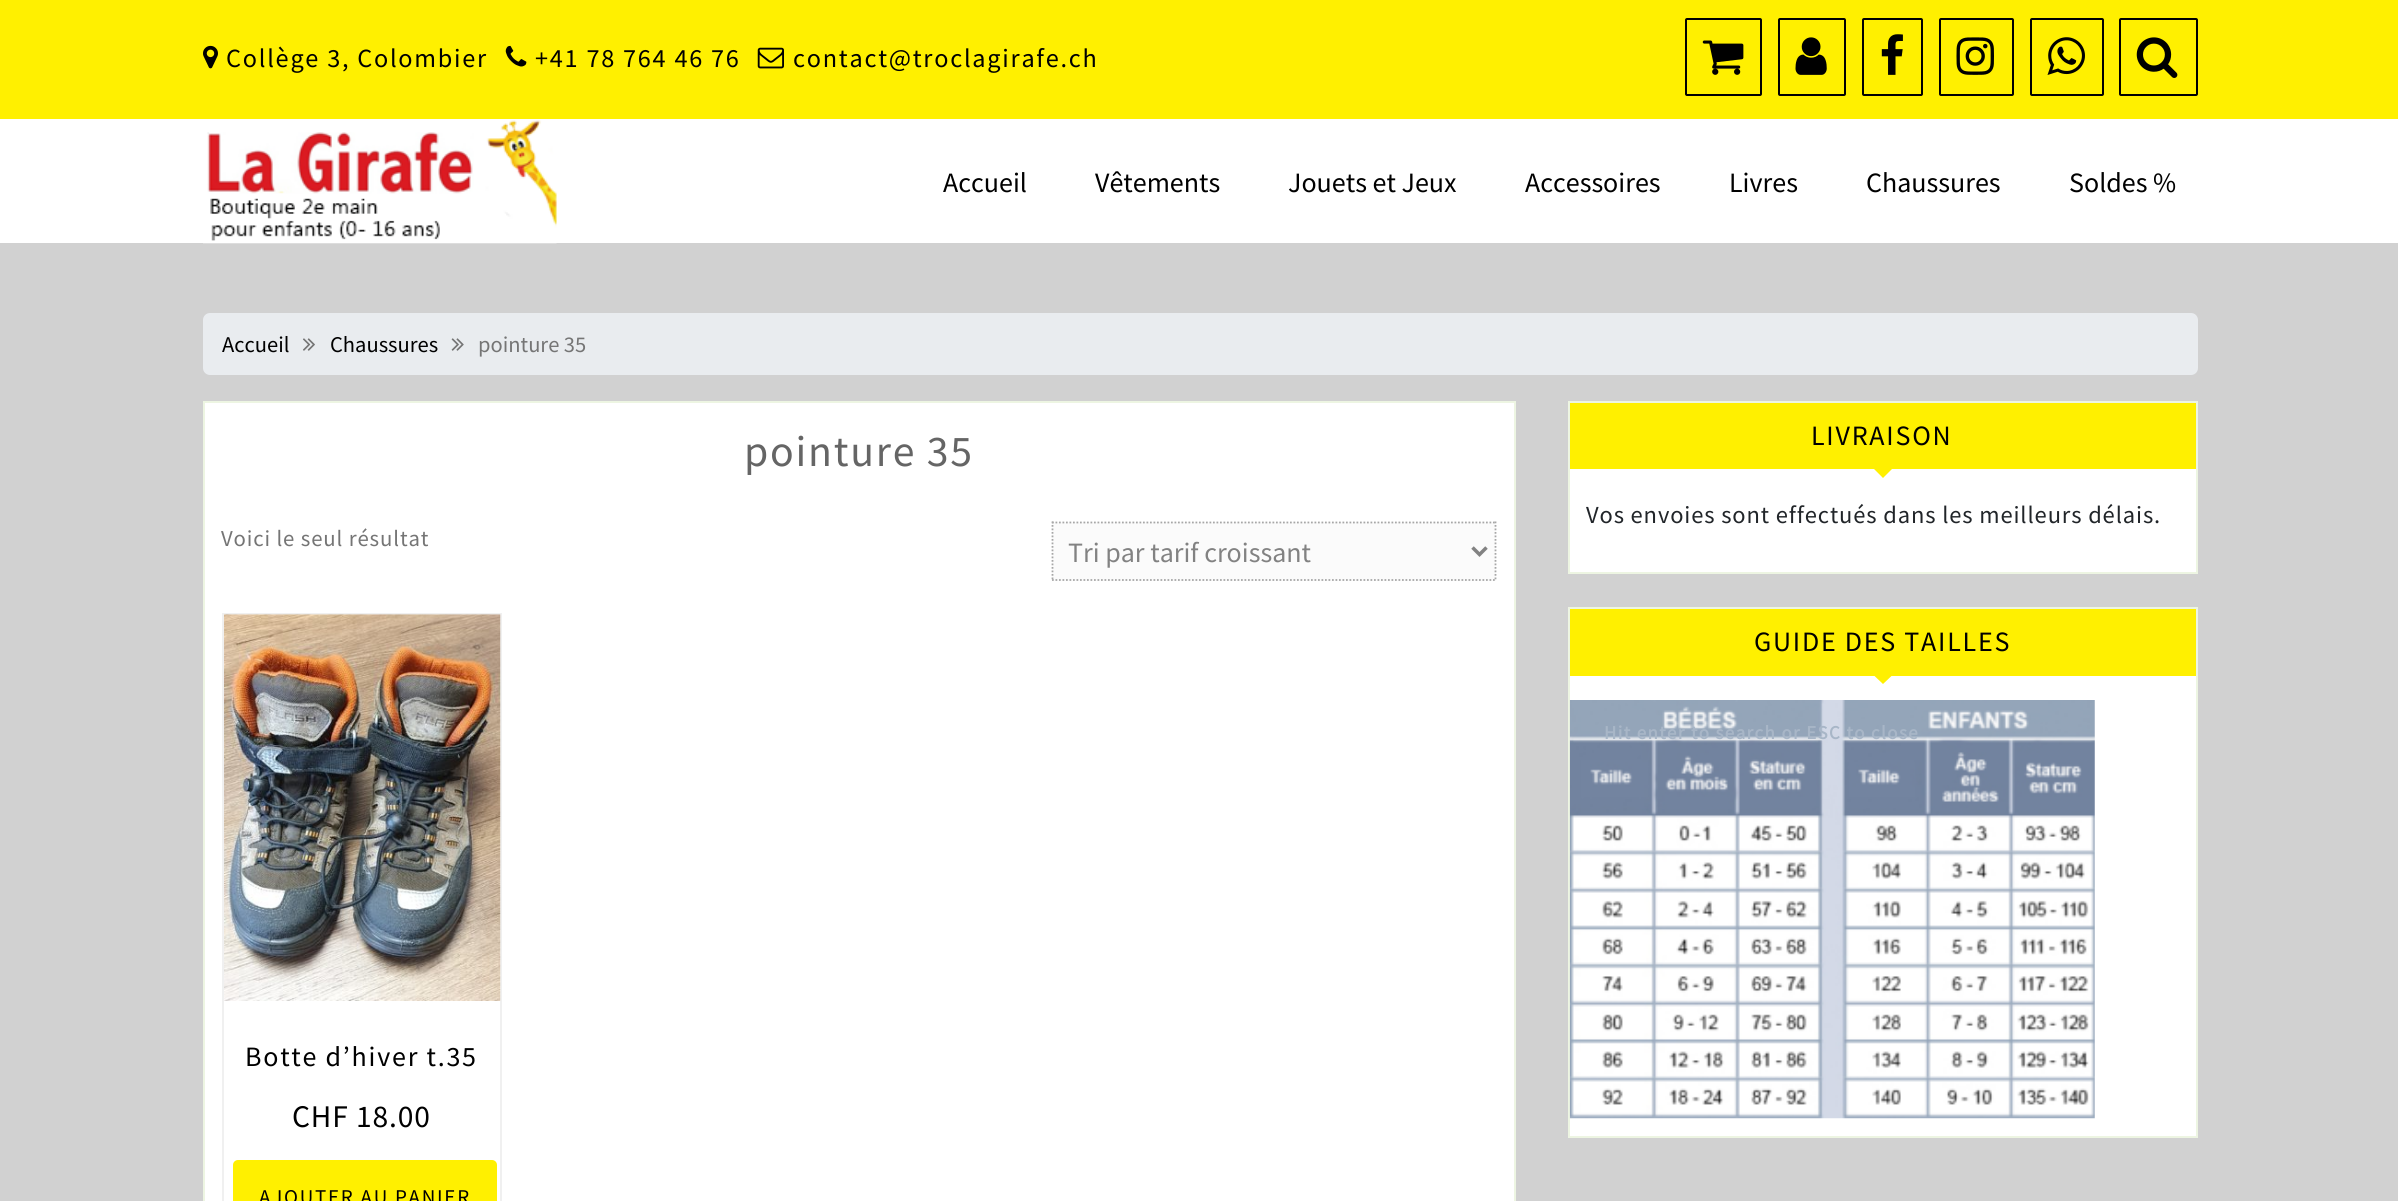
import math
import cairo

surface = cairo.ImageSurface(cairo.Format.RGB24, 2398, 1201)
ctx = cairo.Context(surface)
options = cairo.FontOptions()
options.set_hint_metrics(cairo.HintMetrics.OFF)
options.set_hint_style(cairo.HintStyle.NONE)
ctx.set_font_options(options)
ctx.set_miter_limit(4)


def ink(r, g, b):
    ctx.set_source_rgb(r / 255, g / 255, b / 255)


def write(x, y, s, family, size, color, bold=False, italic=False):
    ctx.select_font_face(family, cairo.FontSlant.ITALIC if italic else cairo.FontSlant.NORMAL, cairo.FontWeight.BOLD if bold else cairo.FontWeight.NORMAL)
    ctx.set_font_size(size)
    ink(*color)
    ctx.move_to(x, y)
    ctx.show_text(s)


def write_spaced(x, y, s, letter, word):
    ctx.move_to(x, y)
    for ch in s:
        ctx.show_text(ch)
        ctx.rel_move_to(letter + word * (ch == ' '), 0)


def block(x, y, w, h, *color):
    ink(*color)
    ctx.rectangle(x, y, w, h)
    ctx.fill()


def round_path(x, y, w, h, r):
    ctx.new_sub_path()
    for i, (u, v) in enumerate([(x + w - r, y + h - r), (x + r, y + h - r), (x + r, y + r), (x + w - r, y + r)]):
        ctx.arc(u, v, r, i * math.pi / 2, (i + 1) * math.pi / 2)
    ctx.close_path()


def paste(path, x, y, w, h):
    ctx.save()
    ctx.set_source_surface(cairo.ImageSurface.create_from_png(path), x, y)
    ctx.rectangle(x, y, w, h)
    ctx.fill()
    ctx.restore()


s1 = dict(family="Source Sans Pro", size=28, color=(0, 0, 0))
s2 = dict(family="Source Sans Pro", size=22.5, color=(0, 0, 0))
s3 = dict(family="Source Sans Pro", size=22.5, color=(117, 117, 117))
s4 = dict(family="Source Sans Pro", size=28, color=(130, 130, 130))

ink(209, 209, 209)
ctx.paint()
block(0, 0, 2398, 119, 255, 240, 0)
paste("pic1.png", 203, 45, 15, 24)
ctx.select_font_face("Source Sans Pro")
ctx.set_font_size(26.25)
ink(0, 0, 0)
write_spaced(226, 67, "Collège 3, Colombier", 1.75, 0)
paste("pic2.png", 505, 45, 22, 22)
write_spaced(535, 67, "+41 78 764 46 76", 1.75, 0)
paste("pic3.png", 757, 47, 27, 22)
write_spaced(793, 67, "contact@troclagirafe.ch", 1.75, 0)
round_path(1686, 19, 75, 76, 1)
ctx.stroke()
paste("pic4.png", 1702, 40, 42, 35)
round_path(1779, 19, 66, 76, 1)
ctx.stroke()
paste("pic5.png", 1795, 37, 32, 38)
round_path(1863, 19, 59, 76, 1)
ctx.stroke()
paste("pic6.png", 1881, 34, 22, 41)
round_path(1940, 19, 73, 76, 1)
ctx.stroke()
paste("pic7.png", 1956, 37, 38, 38)
round_path(2031, 19, 72, 76, 1)
ctx.stroke()
paste("pic8.png", 2047, 37, 38, 38)
round_path(2120, 19, 77, 76, 1)
ctx.stroke()
paste("pic9.png", 2136, 37, 42, 41)
block(1570, 676, 626, 460, 255, 255, 255)
ctx.rectangle(1569, 608, 628, 529)
ink(237, 245, 226)
ctx.stroke()
paste("pic14.png", 1569, 700, 526, 419)
ctx.select_font_face("Source Sans Pro", cairo.FontSlant.NORMAL, cairo.FontWeight.BOLD)
ctx.set_font_size(18.9)
ink(168, 182, 199)
write_spaced(1604, 739, "Hit enter to search or ESC to close", 1.4, 0)
block(0, 119, 2398, 124, 255, 255, 255)
paste("pic10.png", 203, 120, 354, 124)
write(943, 192, "Accueil", **s1)
write(1095, 192, "Vêtements", **s1)
write(1288, 192, "Jouets et Jeux", **s1)
write(1525, 192, "Accessoires", **s1)
write(1729, 192, "Livres", **s1)
write(1866, 192, "Chaussures", **s1)
write(2069, 192, "Soldes %", **s1)
ink(233, 236, 239)
round_path(203, 313, 1995, 62, 7)
ctx.fill()
write(222, 352, "Accueil", **s2)
paste("pic11.png", 303, 338, 12, 13)
write(330, 352, "Chaussures", **s2)
paste("pic12.png", 451, 338, 13, 13)
write(478, 352, "pointure 35", **s3)
ink(255, 255, 255)
ctx.rectangle(204, 402, 1311, 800)
ctx.fill_preserve()
ink(237, 245, 226)
ctx.stroke()
ctx.set_font_size(43.75)
ink(101, 101, 101)
write_spaced(744, 466, "pointure 35", 1.75, 0)
ctx.set_font_size(22.75)
ink(117, 117, 117)
write_spaced(221, 546, "Voici le seul résultat", 0.88, 0)
block(1052, 522, 444, 59, 251, 251, 251)
ctx.new_path()
ctx.move_to(1052, 522.5)
ctx.line_to(1496, 522.5)
ink(167, 167, 167)
ctx.set_line_width(1.8)
ctx.set_dash([1.75, 1.75])
ctx.stroke()
ctx.new_path()
ctx.move_to(1495.5, 521.5)
ctx.line_to(1495.5, 581)
ctx.stroke()
ctx.new_path()
ctx.move_to(1052, 580)
ctx.line_to(1496, 580)
ctx.stroke()
ctx.new_path()
ctx.move_to(1052.5, 521.5)
ctx.line_to(1052.5, 581)
ctx.stroke()
ctx.new_path()
ctx.move_to(1472.5, 547.5)
ctx.line_to(1479.5, 554.5)
ctx.line_to(1486.5, 547.5)
ink(130, 130, 130)
ctx.set_line_width(3.5)
ctx.set_dash([])
ctx.stroke()
write(1068, 562, "Tri par tarif croissant", **s4)
ctx.rectangle(223, 614, 278, 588)
ink(240, 240, 240)
ctx.set_line_width(2)
ctx.stroke()
paste("pic13.png", 224, 614, 277, 387)
ink(0, 0, 0)
write_spaced(245, 1066, "Botte d’hiver t.35", 1.75, 0)
ctx.set_font_size(31.5)
write_spaced(292, 1127, "CHF 18.00", 0.88, 0)
ink(255, 240, 0)
round_path(233, 1160, 264, 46, 5)
ctx.fill()
ctx.set_font_size(21)
ink(0, 0, 0)
write_spaced(259, 1204, "AJOUTER AU PANIER", 1.75, 0)
block(1570, 469, 626, 103, 255, 255, 255)
ctx.rectangle(1569, 402, 628, 171)
ink(237, 245, 226)
ctx.stroke()
block(1570, 403, 626, 66, 255, 240, 0)
ctx.set_font_size(28)
ink(0, 0, 0)
write_spaced(1811, 445, "LIVRAISON", 1.75, 0)
ink(255, 240, 0)
ctx.new_path()
ctx.move_to(1874, 469)
ctx.line_to(1892, 469)
ctx.line_to(1883, 478)
ctx.close_path()
ctx.fill()
ctx.set_font_size(24.5)
ink(33, 37, 41)
write_spaced(1586, 523, "Vos envoies sont effectués dans les meilleurs délais.", 0.88, 0)
block(1570, 609, 626, 67, 255, 240, 0)
ctx.set_font_size(28)
ink(0, 0, 0)
write_spaced(1754, 651, "GUIDE DES TAILLES", 1.75, 0)
ink(255, 240, 0)
ctx.new_path()
ctx.move_to(1874, 675.5)
ctx.line_to(1892, 675.5)
ctx.line_to(1883, 684)
ctx.close_path()
ctx.fill()
surface.write_to_png("screenshot.png")
